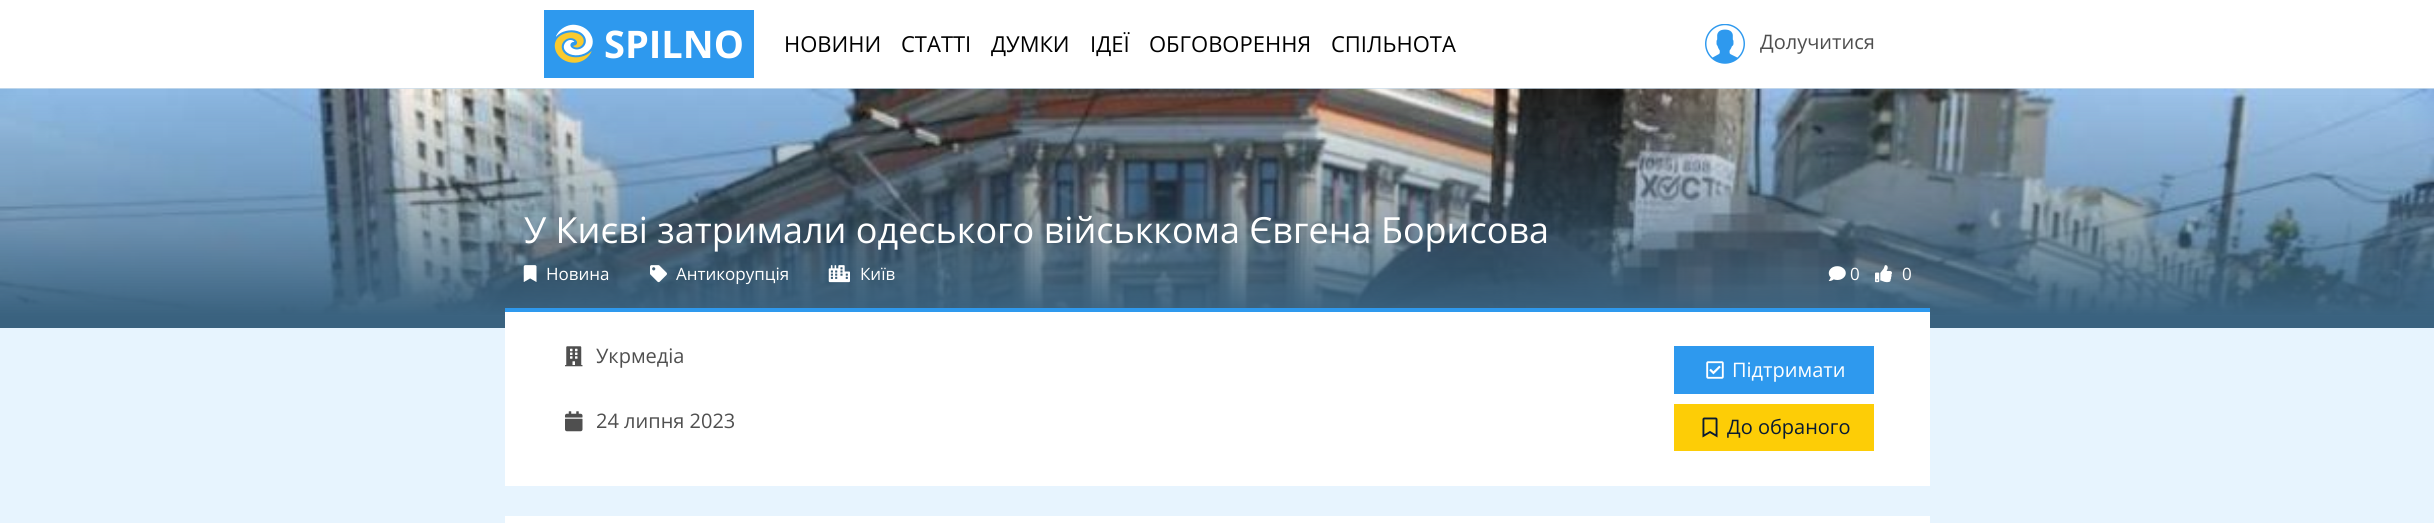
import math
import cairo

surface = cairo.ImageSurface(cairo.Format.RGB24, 2434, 523)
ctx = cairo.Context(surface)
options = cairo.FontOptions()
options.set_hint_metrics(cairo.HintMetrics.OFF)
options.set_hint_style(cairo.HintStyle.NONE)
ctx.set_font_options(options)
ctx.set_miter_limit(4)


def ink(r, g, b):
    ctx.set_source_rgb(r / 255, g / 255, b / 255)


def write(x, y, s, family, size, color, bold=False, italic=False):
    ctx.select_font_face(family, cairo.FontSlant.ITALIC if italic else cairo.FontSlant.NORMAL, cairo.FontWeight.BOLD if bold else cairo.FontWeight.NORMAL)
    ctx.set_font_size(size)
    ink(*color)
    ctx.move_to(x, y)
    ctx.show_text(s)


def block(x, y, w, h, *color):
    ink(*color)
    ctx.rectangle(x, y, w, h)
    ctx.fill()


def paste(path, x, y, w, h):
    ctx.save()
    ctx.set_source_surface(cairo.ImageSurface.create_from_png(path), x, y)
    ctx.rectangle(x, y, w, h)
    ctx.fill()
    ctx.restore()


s1 = dict(family="Open Sans", size=38, color=(255, 255, 255), bold=True)
s2 = dict(family="Open Sans", size=22, color=(0, 0, 0))
s3 = dict(family="Open Sans", size=20, color=(79, 79, 79))
s4 = dict(family="Open Sans", size=36, color=(255, 255, 255))
s5 = dict(family="Open Sans", size=17, color=(255, 255, 255))
s6 = dict(family="Open Sans", size=20, color=(255, 255, 255))
s7 = dict(family="Open Sans", size=20, color=(8, 26, 50))

ink(255, 255, 255)
ctx.paint()
block(544, 10, 210, 68, 46, 153, 238)
paste("pic1.png", 554, 24, 39, 39)
write(604, 58, "SPILNO", **s1)
write(784, 52, "НОВИНИ", **s2)
write(901, 52, "СТАТТІ", **s2)
write(991, 52, "ДУМКИ", **s2)
write(1090, 52, "ІДЕЇ", **s2)
write(1149, 52, "ОБГОВОРЕННЯ", **s2)
write(1331, 52, "СПІЛЬНОТА", **s2)
paste("pic2.png", 1705, 24, 40, 40)
write(1760, 49, "Долучитися", **s3)
block(0, 88, 2434, 1, 204, 223, 238)
block(0, 328, 2434, 195, 231, 244, 254)
paste("pic3.png", 0, 88, 2434, 227)
gradient = cairo.LinearGradient(1218, 328, 1218, 89)
gradient.add_color_stop_rgba(0.05, 0.227, 0.384, 0.498, 1)
gradient.add_color_stop_rgba(0.45, 0.227, 0.384, 0.498, 0.5)
gradient.add_color_stop_rgba(1, 0.227, 0.384, 0.498, 0)
ctx.set_source(gradient)
ctx.rectangle(0, 95, 2434, 233)
ctx.fill()
write(524, 243, "У Києві затримали одеського військкома Євгена Борисова", **s4)
paste("pic4.png", 523, 265, 14, 17)
write(546, 280, "Новина", **s5)
paste("pic5.png", 650, 265, 17, 18)
write(676, 280, "Антикорупція", **s5)
paste("pic6.png", 828, 265, 22, 18)
write(860, 280, "Київ", **s5)
paste("pic7.png", 1828, 266, 18, 16)
write(1850, 280, "0", **s5)
paste("pic8.png", 1875, 265, 17, 18)
write(1902, 280, "0", **s5)
block(505, 312, 1425, 174, 255, 255, 255)
block(505, 308, 1425, 4, 46, 153, 238)
paste("pic9.png", 565, 346, 18, 21)
write(596, 363, "Укрмедіа", **s3)
paste("pic10.png", 565, 411, 18, 21)
write(596, 428, "24 липня 2023", **s3)
block(1674, 346, 200, 48, 46, 153, 238)
paste("pic11.png", 1706, 361, 18, 18)
write(1732, 377, "Підтримати", **s6)
block(1674, 404, 200, 47, 253, 205, 6)
paste("pic12.png", 1702, 417, 16, 21)
write(1727, 434, "До обраного", **s7)
block(505, 516, 1425, 7, 255, 255, 255)
surface.write_to_png("screenshot.png")
